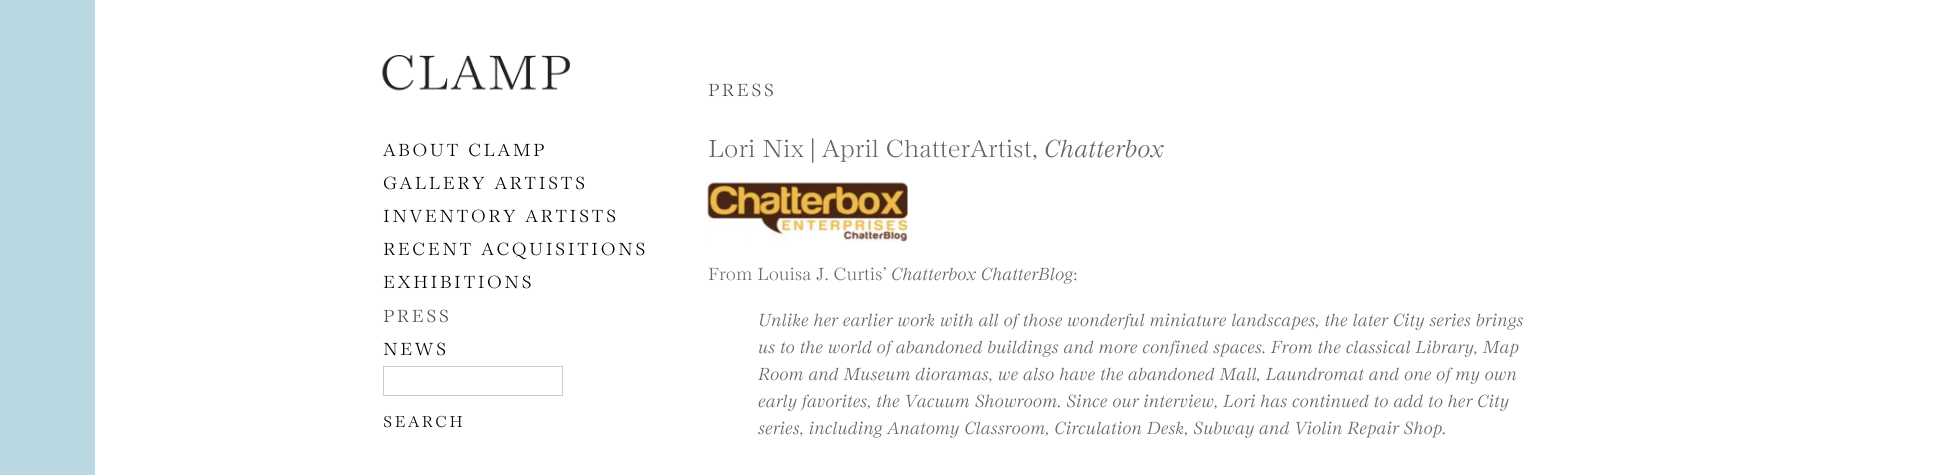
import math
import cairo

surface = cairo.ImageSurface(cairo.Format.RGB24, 1939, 475)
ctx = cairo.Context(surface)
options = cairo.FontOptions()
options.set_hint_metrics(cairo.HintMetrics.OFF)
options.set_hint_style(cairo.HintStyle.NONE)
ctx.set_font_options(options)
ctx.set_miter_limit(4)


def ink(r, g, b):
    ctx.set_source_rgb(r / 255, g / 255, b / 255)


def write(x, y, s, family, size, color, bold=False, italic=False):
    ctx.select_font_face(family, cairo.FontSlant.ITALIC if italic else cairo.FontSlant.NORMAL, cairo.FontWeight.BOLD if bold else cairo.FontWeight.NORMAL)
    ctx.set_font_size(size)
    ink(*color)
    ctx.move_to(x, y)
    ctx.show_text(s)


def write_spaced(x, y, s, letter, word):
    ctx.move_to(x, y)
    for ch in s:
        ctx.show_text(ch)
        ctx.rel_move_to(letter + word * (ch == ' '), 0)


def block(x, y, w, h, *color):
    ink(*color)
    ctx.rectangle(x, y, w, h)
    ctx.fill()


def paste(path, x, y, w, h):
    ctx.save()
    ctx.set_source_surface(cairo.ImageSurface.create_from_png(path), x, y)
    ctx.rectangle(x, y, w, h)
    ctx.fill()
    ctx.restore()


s1 = dict(family="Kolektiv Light", size=27, color=(102, 102, 102))
s2 = dict(family="Liberation Serif", size=27, color=(102, 102, 102))
s3 = dict(family="Kolektiv Light", size=27, color=(102, 102, 102), italic=True)
s4 = dict(family="Kolektiv Light", size=19.2, color=(102, 102, 102))
s5 = dict(family="Kolektiv Light", size=19.2, color=(102, 102, 102), italic=True)

ink(255, 255, 255)
ctx.paint()
block(0, 0, 95, 475, 185, 216, 226)
paste("pic1.png", 382, 55, 188, 36)
ctx.select_font_face("Kolektiv Light")
ctx.set_font_size(19.2)
ink(0, 0, 0)
write_spaced(383, 156, "ABOUT CLAMP", 2.5, 0)
write_spaced(383, 189, "GALLERY ARTISTS", 2.5, 0)
write_spaced(383, 222, "INVENTORY ARTISTS", 2.5, 0)
write_spaced(383, 255, "RECENT ACQUISITIONS", 2.5, 0)
write_spaced(383, 288, "EXHIBITIONS", 2.5, 0)
ink(76, 76, 76)
write_spaced(383, 322, "PRESS", 2.5, 0)
ink(0, 0, 0)
write_spaced(383, 355, "NEWS", 2.5, 0)
ctx.rectangle(383.5, 366.5, 179, 29)
ink(204, 204, 204)
ctx.set_line_width(1)
ctx.stroke()
ctx.set_font_size(17.25)
ink(0, 0, 0)
write_spaced(383, 427, "SEARCH", 2.5, 0)
ctx.set_font_size(19.2)
ink(76, 76, 76)
write_spaced(708, 96, "PRESS", 2.5, 0)
write(708, 157, "Lori Nix", **s1)
write(810, 157, "|", **s2)
write(822, 157, "April ChatterArtist,", **s1)
write(1044, 157, "Chatterbox", **s3)
paste("pic2.png", 707, 182, 201, 60)
write(708, 280, "From Louisa J. Curtis’", **s4)
write(891, 280, "Chatterbox ChatterBlog", **s5)
write(1073, 280, ":", **s4)
write(758, 326, "Unlike her earlier work with all of those wonderful miniature landscapes, the later City series brings", **s5)
write(758, 353, "us to the world of abandoned buildings and more confined spaces. From the classical Library, Map", **s5)
write(758, 380, "Room and Museum dioramas, we also have the abandoned Mall, Laundromat and one of my own", **s5)
write(758, 407, "early favorites, the Vacuum Showroom. Since our interview, Lori has continued to add to her City", **s5)
write(758, 434, "series, including Anatomy Classroom, Circulation Desk, Subway and Violin Repair Shop.", **s5)
surface.write_to_png("screenshot.png")
